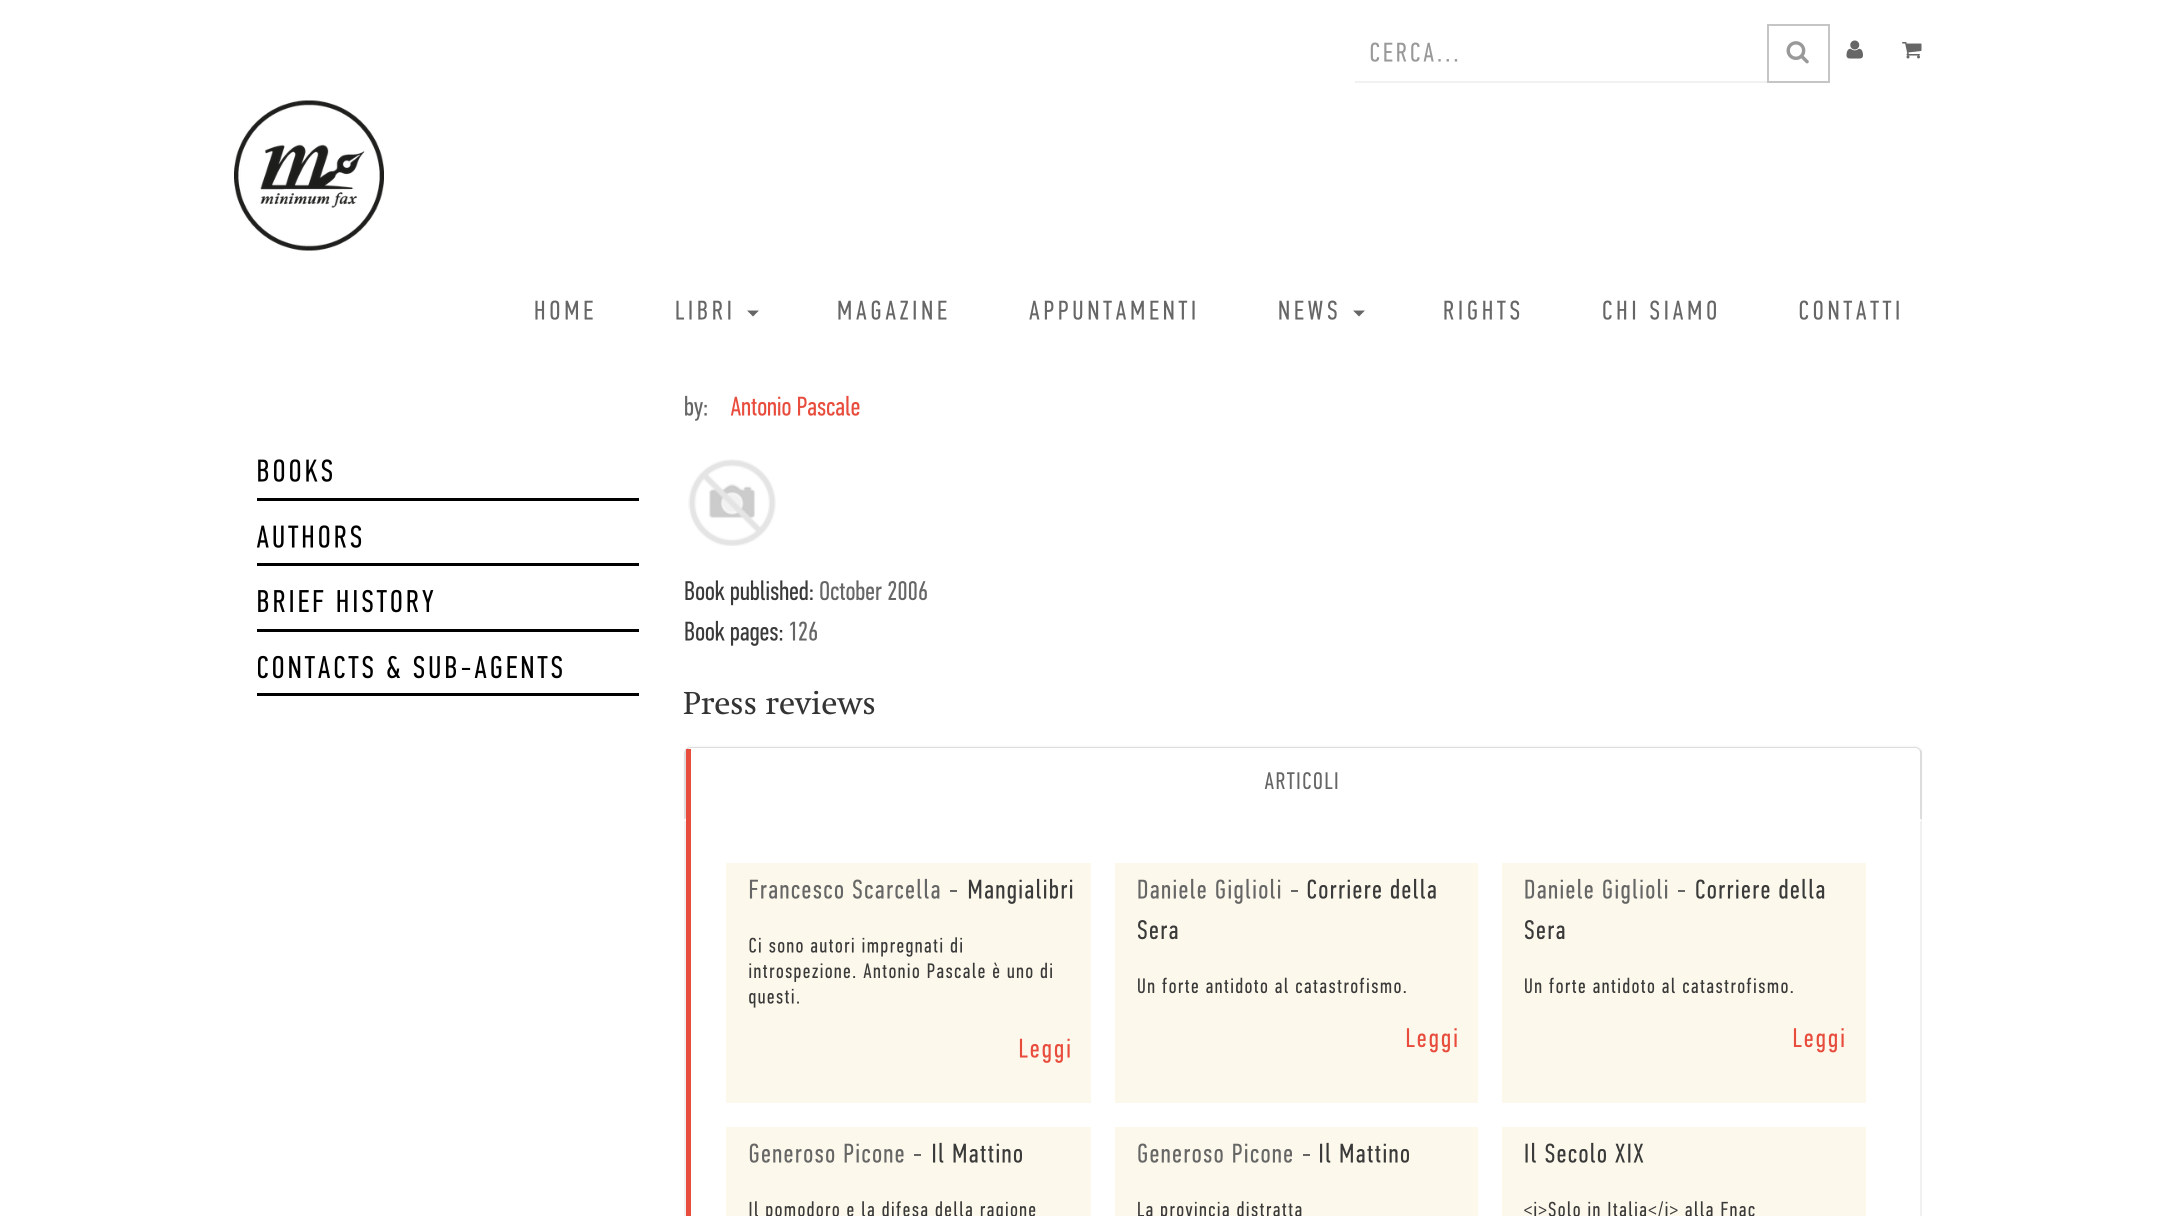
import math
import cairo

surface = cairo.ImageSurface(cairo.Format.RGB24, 2176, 1216)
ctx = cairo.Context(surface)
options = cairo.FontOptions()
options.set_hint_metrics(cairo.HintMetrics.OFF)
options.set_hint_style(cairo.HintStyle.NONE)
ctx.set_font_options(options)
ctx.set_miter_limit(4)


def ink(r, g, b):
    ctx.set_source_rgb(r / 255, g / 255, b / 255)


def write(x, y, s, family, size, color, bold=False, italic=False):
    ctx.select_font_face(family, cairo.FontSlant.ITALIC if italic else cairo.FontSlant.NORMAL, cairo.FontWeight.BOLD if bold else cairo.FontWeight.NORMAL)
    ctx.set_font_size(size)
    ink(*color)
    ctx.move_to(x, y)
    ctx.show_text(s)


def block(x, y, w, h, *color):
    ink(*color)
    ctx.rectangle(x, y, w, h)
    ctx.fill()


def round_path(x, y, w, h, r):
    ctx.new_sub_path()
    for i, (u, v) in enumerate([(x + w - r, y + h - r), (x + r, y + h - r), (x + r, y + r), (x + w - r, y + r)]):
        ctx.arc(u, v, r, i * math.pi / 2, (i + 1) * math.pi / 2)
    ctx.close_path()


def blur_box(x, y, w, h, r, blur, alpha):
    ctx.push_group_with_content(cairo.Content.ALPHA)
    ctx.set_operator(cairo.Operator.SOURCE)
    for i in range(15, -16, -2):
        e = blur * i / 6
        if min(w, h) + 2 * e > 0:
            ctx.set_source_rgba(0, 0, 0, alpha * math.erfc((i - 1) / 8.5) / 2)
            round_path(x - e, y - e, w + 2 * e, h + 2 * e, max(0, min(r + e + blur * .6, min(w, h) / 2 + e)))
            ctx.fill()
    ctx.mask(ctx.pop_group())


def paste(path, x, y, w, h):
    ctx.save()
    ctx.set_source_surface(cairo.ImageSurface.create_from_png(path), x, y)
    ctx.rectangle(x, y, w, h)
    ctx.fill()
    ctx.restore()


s1 = dict(family="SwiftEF", size=33, color=(52, 52, 52))

ink(255, 255, 255)
ctx.paint()
block(1355, 81, 414, 2, 241, 241, 241)
paste("pic1.png", 1370, 42, 88, 20)
ctx.rectangle(1768, 25, 61, 57)
ink(197, 197, 197)
ctx.stroke()
paste("pic2.png", 1786, 41, 23, 23)
paste("pic3.png", 1846, 40, 17, 19)
paste("pic4.png", 1902, 42, 20, 17)
paste("pic5.png", 234, 100, 150, 151)
paste("pic6.png", 535, 300, 58, 20)
paste("pic7.png", 676, 300, 55, 20)
ink(102, 102, 102)
ctx.new_path()
ctx.move_to(747, 310.5)
ctx.line_to(759, 310.5)
ctx.line_to(753, 316.5)
ctx.close_path()
ctx.fill()
paste("pic8.png", 838, 300, 109, 20)
paste("pic9.png", 1029, 300, 166, 20)
paste("pic10.png", 1279, 300, 58, 20)
ctx.new_path()
ctx.move_to(1353, 310.5)
ctx.line_to(1365, 310.5)
ctx.line_to(1359, 316.5)
ctx.close_path()
ctx.fill()
paste("pic11.png", 1444, 300, 76, 20)
paste("pic12.png", 1603, 300, 113, 20)
paste("pic13.png", 1799, 300, 100, 20)
block(257, 498, 382, 3, 0, 0, 0)
paste("pic14.png", 258, 459, 74, 23)
block(257, 563, 382, 3, 0, 0, 0)
paste("pic15.png", 256, 525, 106, 23)
block(257, 629, 382, 3, 0, 0, 0)
paste("pic16.png", 258, 589, 176, 24)
block(257, 693, 382, 3, 0, 0, 0)
paste("pic17.png", 258, 655, 304, 24)
paste("pic18.png", 685, 395, 22, 26)
paste("pic19.png", 730, 395, 130, 21)
paste("pic20.png", 688, 459, 88, 87)
paste("pic21.png", 685, 580, 128, 26)
paste("pic22.png", 820, 580, 107, 21)
paste("pic23.png", 685, 620, 98, 26)
paste("pic24.png", 790, 621, 27, 20)
write(683, 714, "Press reviews", **s1)
ink(0, 0, 0)
blur_box(684, 746, 1238, 73, 6, 1, 0.04)
ink(255, 255, 255)
ctx.new_path()
ctx.move_to(690, 747)
ctx.line_to(1916, 747)
ctx.curve_to(1919.5, 747, 1922, 749.5, 1922, 753)
ctx.line_to(1922, 821)
ctx.line_to(684, 821)
ctx.line_to(684, 753)
ctx.curve_to(684, 749.5, 686.5, 747, 690, 747)
ctx.close_path()
ctx.fill()
ink(221, 221, 221)
ctx.new_path()
ctx.move_to(690, 747)
ctx.curve_to(688, 747, 687, 748, 686, 749)
ctx.line_to(687, 750)
ctx.curve_to(688, 749, 689, 748, 690, 748)
ctx.line_to(1916, 748)
ctx.curve_to(1917, 748, 1918, 749, 1919, 750)
ctx.line_to(1920, 749)
ctx.curve_to(1919, 748, 1917, 747, 1916, 747)
ctx.close_path()
ctx.fill()
ctx.new_path()
ctx.move_to(1922, 820)
ctx.line_to(1920, 819)
ctx.line_to(1920, 753)
ctx.curve_to(1920, 752, 1920, 751, 1919, 750)
ctx.line_to(1920, 749)
ctx.line_to(1922, 751)
ctx.close_path()
ctx.fill()
ink(255, 255, 255)
ctx.new_path()
ctx.move_to(1921, 820)
ctx.line_to(684, 820)
ctx.line_to(686, 818)
ctx.line_to(686, 819)
ctx.line_to(1920, 819)
ctx.close_path()
ctx.fill()
ink(221, 221, 221)
ctx.new_path()
ctx.move_to(684, 753)
ctx.line_to(684, 820)
ctx.line_to(686, 818)
ctx.line_to(686, 753)
ctx.line_to(687, 750)
ctx.line_to(686, 749)
ctx.curve_to(685, 750, 684, 752, 684, 753)
ctx.close_path()
ctx.fill()
block(686, 749, 5, 467, 232, 76, 61)
paste("pic25.png", 1264, 772, 74, 18)
block(1920, 821, 2, 395, 240, 240, 240)
block(684, 821, 2, 395, 240, 240, 240)
block(726, 863, 365, 240, 252, 248, 235)
paste("pic26.png", 749, 878, 191, 21)
block(950, 890, 7, 2, 102, 102, 102)
paste("pic27.png", 968, 878, 105, 26)
paste("pic28.png", 749, 937, 213, 20)
paste("pic29.png", 749, 962, 303, 20)
paste("pic30.png", 749, 988, 50, 20)
paste("pic31.png", 1019, 1038, 51, 25)
block(1115, 863, 363, 240, 252, 248, 235)
paste("pic32.png", 1138, 878, 143, 26)
block(1291, 890, 7, 2, 102, 102, 102)
paste("pic33.png", 1307, 878, 129, 21)
paste("pic34.png", 1137, 920, 41, 20)
paste("pic35.png", 1138, 977, 268, 17)
paste("pic36.png", 1406, 1028, 51, 25)
block(1502, 863, 364, 240, 252, 248, 235)
paste("pic32.png", 1525, 878, 143, 26)
block(1678, 890, 7, 2, 102, 102, 102)
paste("pic37.png", 1696, 878, 129, 21)
paste("pic34.png", 1524, 920, 41, 20)
paste("pic35.png", 1525, 977, 268, 17)
paste("pic36.png", 1793, 1028, 51, 25)
block(726, 1127, 365, 89, 252, 248, 235)
paste("pic38.png", 749, 1143, 155, 20)
block(914, 1154, 7, 2, 102, 102, 102)
paste("pic39.png", 933, 1142, 89, 21)
paste("pic40.png", 749, 1201, 287, 15)
block(1115, 1127, 363, 89, 252, 248, 235)
paste("pic41.png", 1138, 1143, 154, 20)
block(1303, 1154, 7, 2, 102, 102, 102)
paste("pic39.png", 1320, 1142, 89, 21)
paste("pic42.png", 1138, 1201, 164, 15)
block(1502, 1127, 364, 89, 252, 248, 235)
paste("pic43.png", 1525, 1142, 119, 21)
paste("pic44.png", 1524, 1201, 231, 15)
surface.write_to_png("screenshot.png")
